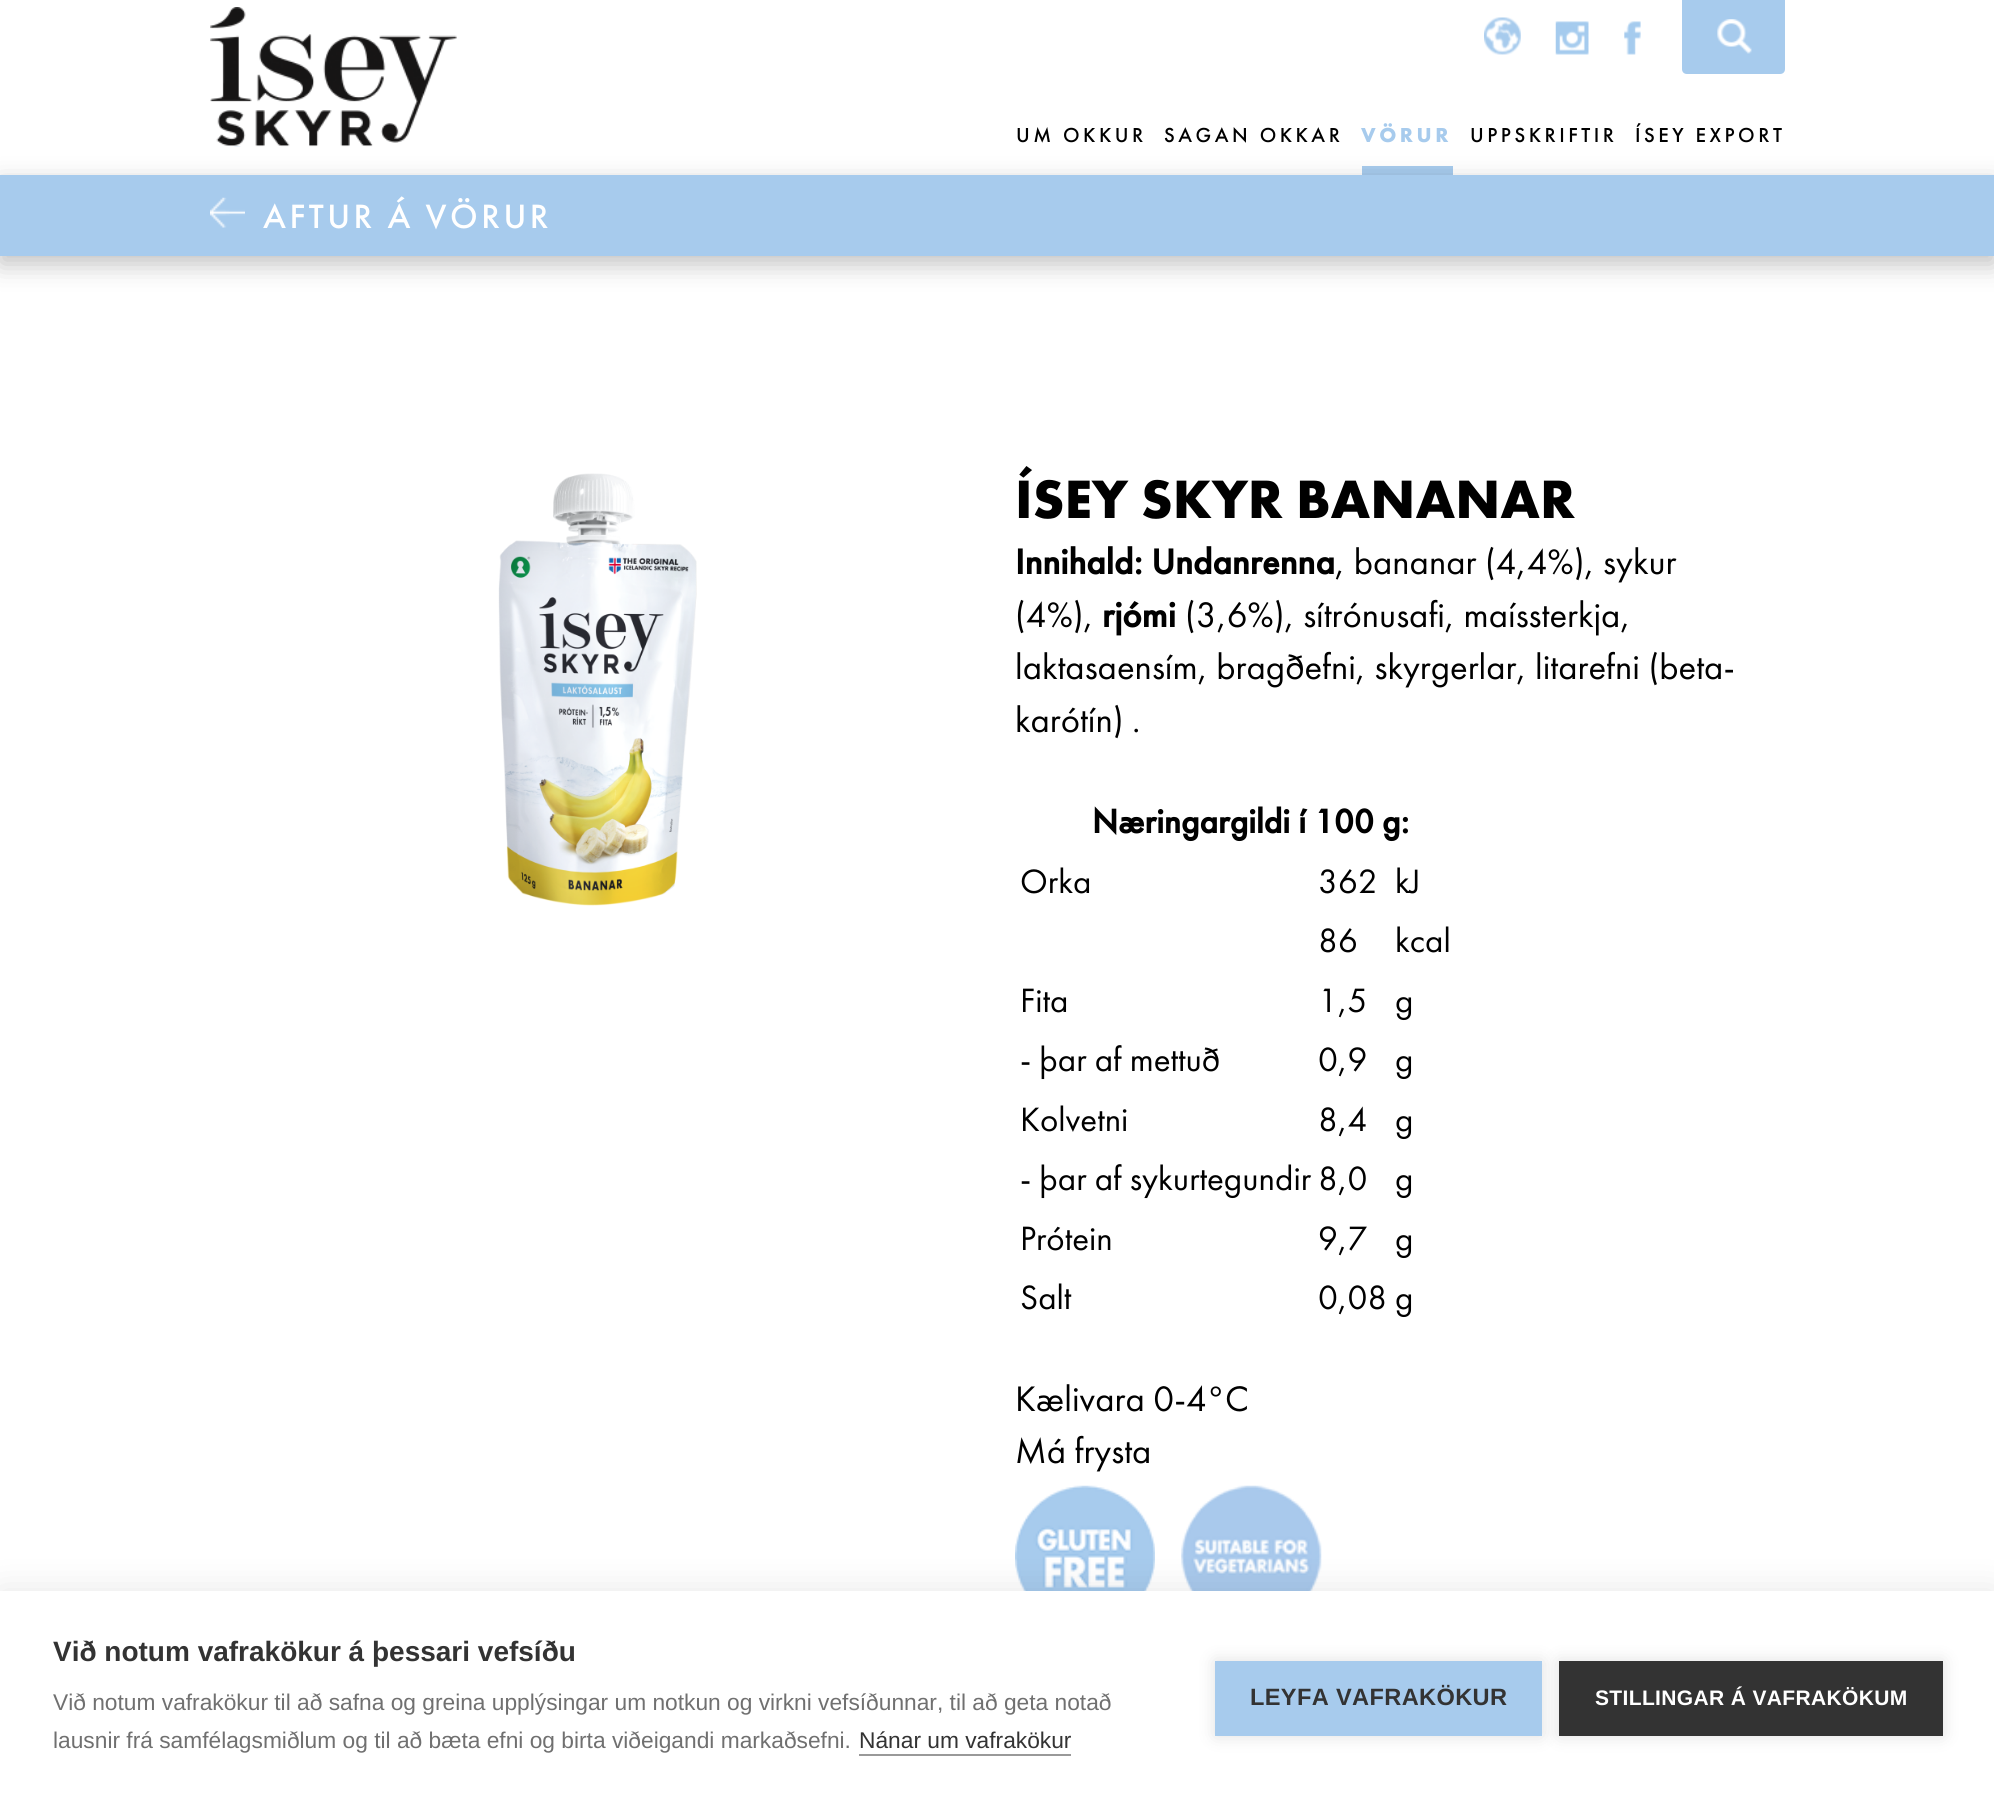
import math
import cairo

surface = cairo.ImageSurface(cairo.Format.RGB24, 1994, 1804)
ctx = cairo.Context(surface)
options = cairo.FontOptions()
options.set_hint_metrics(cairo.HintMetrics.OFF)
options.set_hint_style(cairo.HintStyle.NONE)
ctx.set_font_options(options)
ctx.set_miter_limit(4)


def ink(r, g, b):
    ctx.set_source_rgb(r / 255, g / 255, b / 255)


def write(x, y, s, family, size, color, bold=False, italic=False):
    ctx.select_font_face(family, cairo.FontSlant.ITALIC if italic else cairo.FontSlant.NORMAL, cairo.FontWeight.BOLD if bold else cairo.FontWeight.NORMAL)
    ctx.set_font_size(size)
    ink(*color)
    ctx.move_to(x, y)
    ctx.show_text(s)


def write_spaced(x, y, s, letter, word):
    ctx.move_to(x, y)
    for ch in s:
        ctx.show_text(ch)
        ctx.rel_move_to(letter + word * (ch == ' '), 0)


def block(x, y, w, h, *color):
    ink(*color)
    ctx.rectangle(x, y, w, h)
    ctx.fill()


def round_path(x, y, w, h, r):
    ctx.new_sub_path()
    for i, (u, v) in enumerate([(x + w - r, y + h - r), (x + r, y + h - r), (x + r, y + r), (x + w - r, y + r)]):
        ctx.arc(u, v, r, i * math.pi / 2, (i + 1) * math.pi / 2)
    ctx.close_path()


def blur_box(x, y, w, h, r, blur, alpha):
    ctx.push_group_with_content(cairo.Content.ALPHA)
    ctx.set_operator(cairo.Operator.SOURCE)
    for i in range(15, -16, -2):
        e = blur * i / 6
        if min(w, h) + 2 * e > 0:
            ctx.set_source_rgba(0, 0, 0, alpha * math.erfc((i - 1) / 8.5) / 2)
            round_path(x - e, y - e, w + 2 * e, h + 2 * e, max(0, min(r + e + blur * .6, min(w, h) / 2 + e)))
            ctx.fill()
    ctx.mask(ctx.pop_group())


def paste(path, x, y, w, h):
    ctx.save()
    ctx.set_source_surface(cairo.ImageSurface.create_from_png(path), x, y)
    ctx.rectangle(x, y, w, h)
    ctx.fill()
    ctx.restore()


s1 = dict(family="Futura PT", size=56, color=(0, 0, 0), bold=True)
s2 = dict(family="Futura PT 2", size=36.75, color=(0, 0, 0), bold=True)
s3 = dict(family="Futura PT", size=36.75, color=(0, 0, 0))
s4 = dict(family="Futura PT 2", size=35, color=(0, 0, 0), bold=True)
s5 = dict(family="Futura PT", size=35, color=(0, 0, 0))
s6 = dict(family="Liberation Sans", size=28, color=(51, 51, 51), bold=True)
s7 = dict(family="Liberation Sans", size=22.75, color=(112, 112, 112))
s8 = dict(family="Liberation Sans", size=22.75, color=(51, 51, 51))

ink(255, 255, 255)
ctx.paint()
paste("pic1.png", 210, 7, 247, 140)
paste("pic2.png", 1484, 17, 37, 38)
paste("pic3.png", 1555, 21, 34, 34)
paste("pic4.png", 1624, 21, 17, 34)
ink(167, 203, 237)
ctx.new_path()
ctx.move_to(1682, 0)
ctx.line_to(1785, 0)
ctx.line_to(1785, 69)
ctx.curve_to(1785, 72, 1783, 74, 1780, 74)
ctx.line_to(1687, 74)
ctx.curve_to(1684, 74, 1682, 72, 1682, 69)
ctx.close_path()
ctx.fill()
paste("pic5.png", 1717, 19, 35, 35)
block(1362, 166, 91, 9, 167, 203, 237)
ctx.select_font_face("Futura PT", cairo.FontSlant.NORMAL, cairo.FontWeight.BOLD)
ctx.set_font_size(21)
write_spaced(1361, 142, "VÖRUR", 3.5, 0)
ink(0, 0, 0)
blur_box(0, 184, 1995, 80, 0, 13, 0.25)
block(0, 175, 1994, 81, 167, 203, 237)
paste("pic6.png", 210, 197, 35, 31)
ctx.select_font_face("Futura PT Medium")
ctx.set_font_size(35)
ink(255, 255, 255)
write_spaced(263, 228, "AFTUR Á VÖRUR", 3.5, 0)
ctx.set_font_size(21)
ink(0, 0, 0)
write_spaced(1635, 142, "ÍSEY EXPORT", 3.5, 0)
write_spaced(1016, 142, "UM OKKUR", 3.5, 0)
write_spaced(1164, 142, "SAGAN OKKAR", 3.5, 0)
write_spaced(1470, 142, "UPPSKRIFTIR", 3.5, 0)
paste("pic7.png", 498, 473, 199, 433)
write(1015, 518, "ÍSEY SKYR BANANAR", **s1)
write(1015, 574, "Innihald: Undanrenna", **s2)
write(1335, 574, ", bananar (4,4%), sykur", **s3)
write(1015, 627, "(4%),", **s3)
write(1102, 627, "rjómi", **s2)
write(1185, 627, "(3,6%), sítrónusafi, maíssterkja,", **s3)
write(1015, 679, "laktasaensím, bragðefni, skyrgerlar, litarefni (beta-", **s3)
write(1015, 732, "karótín) .", **s3)
write(1092, 833, "Næringargildi í 100 g:", **s4)
write(1020, 893, "Orka", **s5)
write(1318, 893, "362", **s5)
write(1395, 893, "kJ", **s5)
write(1318, 952, "86", **s5)
write(1395, 952, "kcal", **s5)
write(1020, 1012, "Fita", **s5)
write(1318, 1012, "1,5", **s5)
write(1395, 1012, "g", **s5)
write(1020, 1071, "- þar af mettuð", **s5)
write(1318, 1071, "0,9", **s5)
write(1395, 1071, "g", **s5)
write(1020, 1131, "Kolvetni", **s5)
write(1318, 1131, "8,4", **s5)
write(1395, 1131, "g", **s5)
write(1020, 1190, "- þar af sykurtegundir", **s5)
write(1318, 1190, "8,0", **s5)
write(1395, 1190, "g", **s5)
write(1020, 1250, "Prótein", **s5)
write(1318, 1250, "9,7", **s5)
write(1395, 1250, "g", **s5)
write(1020, 1309, "Salt", **s5)
write(1318, 1309, "0,08", **s5)
write(1395, 1309, "g", **s5)
write(1015, 1411, "Kælivara 0-4°C", **s3)
write(1015, 1463, "Má frysta", **s3)
paste("pic8.png", 1015, 1485, 140, 106)
paste("pic9.png", 1181, 1485, 141, 106)
ink(0, 0, 0)
blur_box(0, 1591, 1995, 213, 0, 17.5, 0.1)
block(0, 1591, 1994, 213, 255, 255, 255)
write(53, 1661, "Við notum vafrakökur á þessari vefsíðu", **s6)
write(53, 1710, "Við notum vafrakökur til að safna og greina upplýsingar um notkun og virkni vefsíðunnar, til að geta notað", **s7)
write(53, 1748, "lausnir frá samfélagsmiðlum og til að bæta efni og birta viðeigandi markaðsefni.", **s7)
write(859, 1748, "Nánar um vafrakökur", **s8)
block(859, 1754, 212, 2, 153, 153, 153)
ink(0, 0, 0)
blur_box(1215, 1661, 327, 75, 0, 9, 0.12)
block(1215, 1661, 327, 75, 167, 203, 237)
ctx.select_font_face("Liberation Sans", cairo.FontSlant.NORMAL, cairo.FontWeight.BOLD)
ctx.set_font_size(23.6)
ink(51, 51, 51)
write_spaced(1250, 1705, "LEYFA VAFRAKÖKUR", 0.35, 0)
ink(0, 0, 0)
blur_box(1559, 1661, 384, 75, 0, 9, 0.12)
block(1559, 1661, 384, 75, 51, 51, 51)
ctx.set_font_size(21)
ink(255, 255, 255)
write_spaced(1595, 1705, "STILLINGAR Á VAFRAKÖKUM", 0.35, 0)
surface.write_to_png("screenshot.png")
